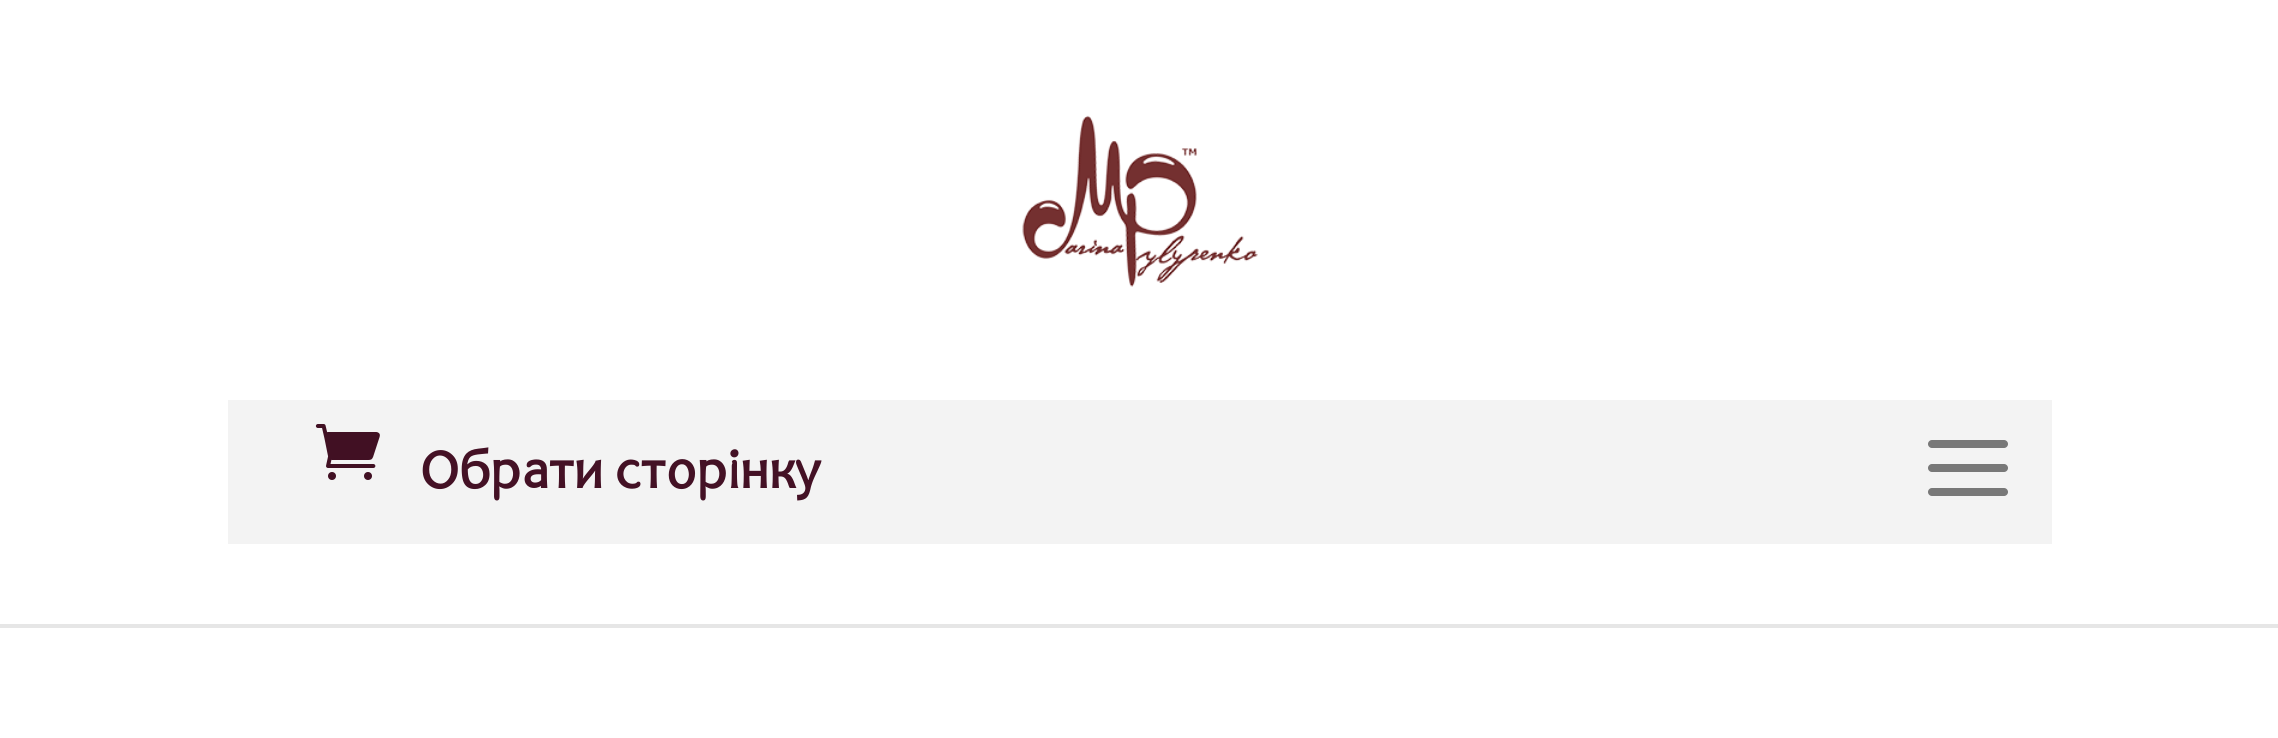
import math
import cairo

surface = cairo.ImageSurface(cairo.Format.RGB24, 2278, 738)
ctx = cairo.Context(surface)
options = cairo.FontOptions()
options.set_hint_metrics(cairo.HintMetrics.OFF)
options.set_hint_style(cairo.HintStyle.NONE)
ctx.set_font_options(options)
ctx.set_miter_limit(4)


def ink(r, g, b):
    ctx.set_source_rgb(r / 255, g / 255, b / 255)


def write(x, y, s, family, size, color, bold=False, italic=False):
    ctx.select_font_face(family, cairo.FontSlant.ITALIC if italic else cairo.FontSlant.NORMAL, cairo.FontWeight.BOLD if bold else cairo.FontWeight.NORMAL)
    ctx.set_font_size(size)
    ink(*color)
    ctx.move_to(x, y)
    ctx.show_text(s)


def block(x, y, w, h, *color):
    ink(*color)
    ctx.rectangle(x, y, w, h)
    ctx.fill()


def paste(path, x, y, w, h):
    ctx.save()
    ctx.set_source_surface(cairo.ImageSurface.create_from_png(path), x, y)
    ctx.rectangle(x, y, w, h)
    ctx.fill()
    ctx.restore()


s1 = dict(family="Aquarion", size=56, color=(68, 17, 37), bold=True)

ink(255, 255, 255)
ctx.paint()
block(0, 624, 2278, 4, 230, 230, 230)
paste("pic1.png", 1022, 115, 236, 172)
paste("pic2.png", 315, 424, 65, 56)
ctx.set_source_rgba(0, 0, 0, 0.05)
ctx.rectangle(228, 400, 1824, 144)
ctx.fill()
write(420, 488, "Обрати сторінку", **s1)
paste("pic3.png", 1928, 440, 80, 56)
surface.write_to_png("screenshot.png")
